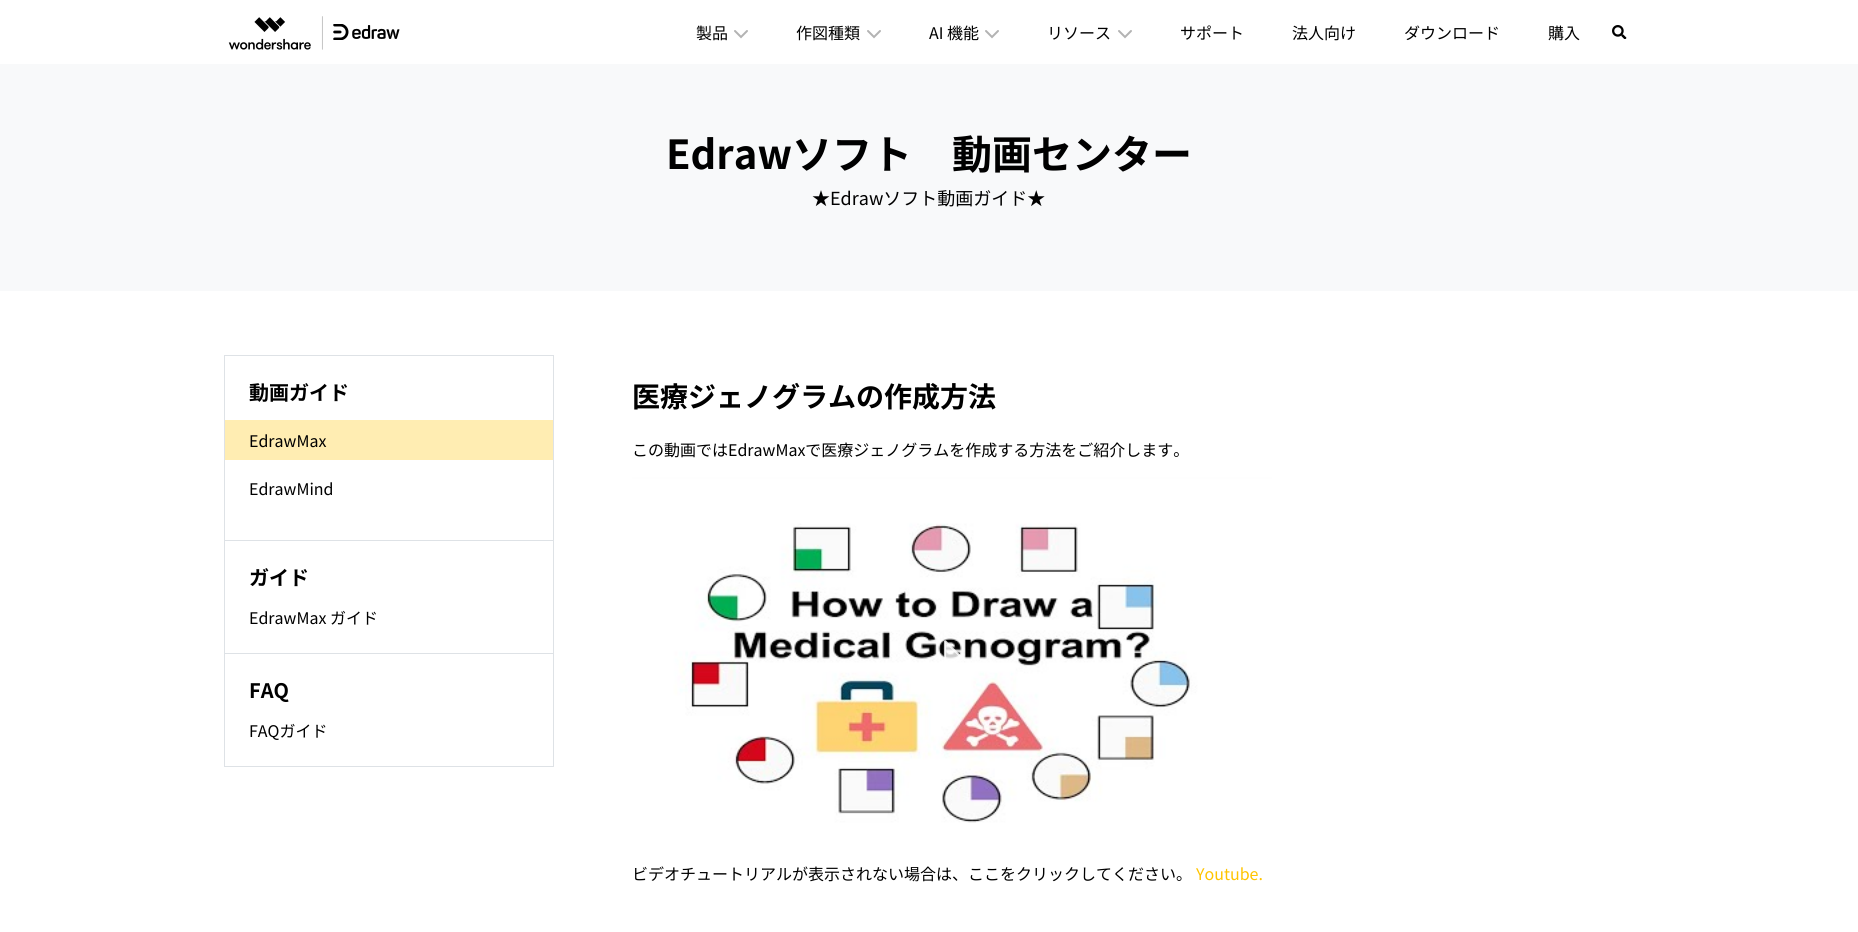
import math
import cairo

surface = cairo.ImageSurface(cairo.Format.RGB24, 1858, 932)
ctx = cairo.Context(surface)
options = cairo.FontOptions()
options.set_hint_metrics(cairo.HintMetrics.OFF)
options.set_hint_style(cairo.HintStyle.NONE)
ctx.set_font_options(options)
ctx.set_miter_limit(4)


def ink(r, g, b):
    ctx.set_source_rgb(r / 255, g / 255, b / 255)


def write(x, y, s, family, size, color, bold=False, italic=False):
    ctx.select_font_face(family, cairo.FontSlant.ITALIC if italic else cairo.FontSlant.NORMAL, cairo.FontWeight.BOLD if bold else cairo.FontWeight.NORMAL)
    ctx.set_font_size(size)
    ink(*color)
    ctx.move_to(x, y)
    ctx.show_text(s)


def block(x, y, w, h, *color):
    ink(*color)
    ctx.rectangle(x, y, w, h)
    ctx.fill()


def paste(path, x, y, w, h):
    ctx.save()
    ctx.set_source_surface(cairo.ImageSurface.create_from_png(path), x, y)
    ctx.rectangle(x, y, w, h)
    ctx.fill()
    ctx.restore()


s1 = dict(family="Noto Sans JP", size=16, color=(0, 0, 0))
s2 = dict(family="Noto Sans JP", size=40, color=(0, 0, 0), bold=True)
s3 = dict(family="Noto Sans JP", size=18, color=(0, 0, 0))
s4 = dict(family="Noto Sans JP", size=20, color=(0, 0, 0), bold=True)
s5 = dict(family="Noto Sans JP", size=28, color=(0, 0, 0), bold=True)
s6 = dict(family="Noto Sans JP", size=16, color=(255, 196, 0))

ink(255, 255, 255)
ctx.paint()
paste("pic1.png", 228, 16, 172, 34)
write(696, 39, "製品", **s1)
ctx.new_path()
ctx.move_to(735, 31)
ctx.line_to(741, 37)
ctx.line_to(747, 31)
ink(179, 179, 179)
ctx.set_line_cap(cairo.LineCap.ROUND)
ctx.stroke()
write(796, 39, "作図種類", **s1)
ctx.new_path()
ctx.move_to(868, 31)
ctx.line_to(874, 37)
ctx.line_to(880, 31)
ink(179, 179, 179)
ctx.stroke()
write(929, 39, "AI 機能", **s1)
ctx.new_path()
ctx.move_to(986, 31)
ctx.line_to(992, 37)
ctx.line_to(998, 31)
ink(179, 179, 179)
ctx.stroke()
write(1047, 39, "リソース", **s1)
ctx.new_path()
ctx.move_to(1119, 31)
ctx.line_to(1125, 37)
ctx.line_to(1131, 31)
ink(179, 179, 179)
ctx.stroke()
write(1180, 39, "サポート", **s1)
write(1292, 39, "法人向け", **s1)
write(1404, 39, "ダウンロード", **s1)
write(1548, 39, "購入", **s1)
paste("pic2.png", 1612, 25, 15, 14)
block(0, 64, 1858, 227, 248, 249, 250)
write(666, 169, "Edrawソフト　動画センター", **s2)
write(812, 205, "★Edrawソフト動画ガイド★", **s3)
ctx.rectangle(224.5, 355.5, 329, 411)
ink(222, 226, 230)
ctx.set_line_width(1)
ctx.set_line_cap(cairo.LineCap.BUTT)
ctx.stroke()
write(249, 400, "動画ガイド", **s4)
block(225, 420, 328, 40, 255, 237, 178)
write(249, 447, "EdrawMax", **s1)
write(249, 495, "EdrawMind", **s1)
block(225, 540, 328, 1, 222, 226, 230)
write(249, 585, "ガイド", **s4)
write(249, 624, "EdrawMax ガイド", **s1)
block(225, 653, 328, 1, 222, 226, 230)
write(249, 698, "FAQ", **s4)
write(249, 737, "FAQガイド", **s1)
write(632, 407, "医療ジェノグラムの作成方法", **s5)
write(632, 456, "この動画ではEdrawMaxで医療ジェノグラムを作成する方法をご紹介します。", **s1)
paste("pic3.png", 632, 477, 640, 360)
ctx.set_source_rgba(1, 1, 1, 0.8)
ctx.new_path()
ctx.move_to(945, 641)
ctx.line_to(945, 673)
ctx.line_to(961, 657)
ctx.close_path()
ctx.fill_preserve()
ctx.set_line_width(2.2)
ctx.set_line_join(cairo.LineJoin.BEVEL)
ctx.stroke()
write(632, 880, "ビデオチュートリアルが表示されない場合は、ここをクリックしてください。", **s1)
write(1196, 880, "Youtube.", **s6)
surface.write_to_png("screenshot.png")
